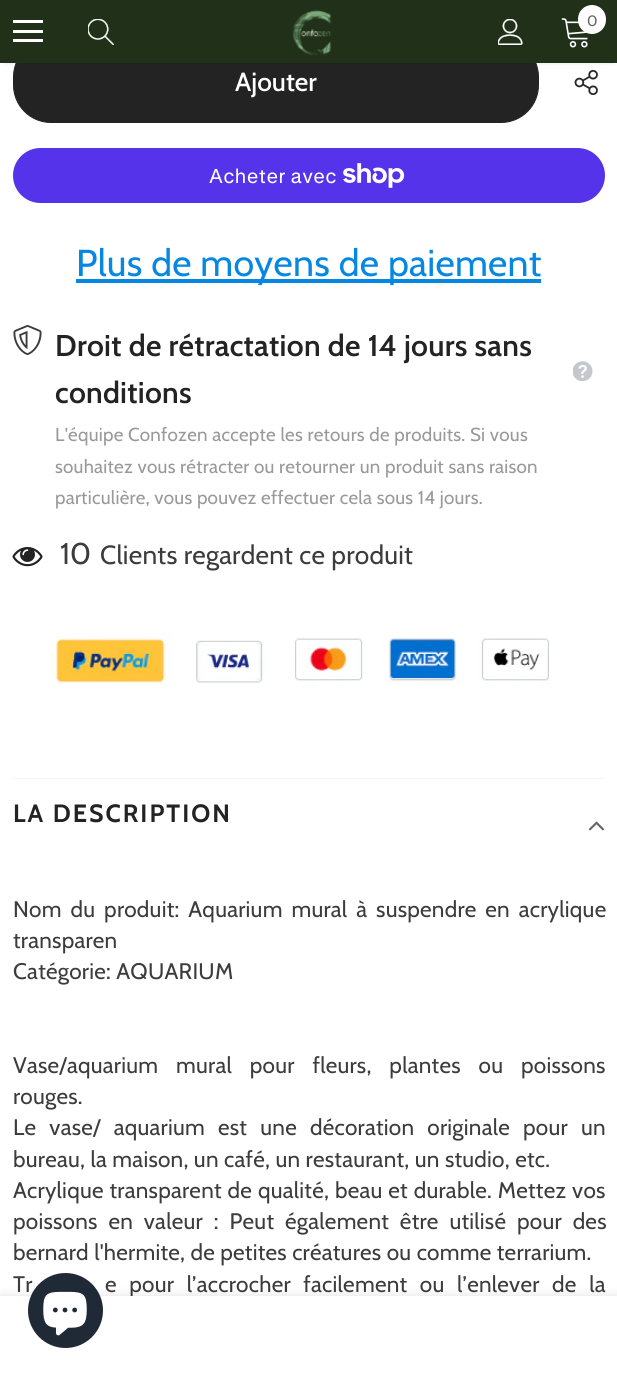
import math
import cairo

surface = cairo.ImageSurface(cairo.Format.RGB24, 617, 1373)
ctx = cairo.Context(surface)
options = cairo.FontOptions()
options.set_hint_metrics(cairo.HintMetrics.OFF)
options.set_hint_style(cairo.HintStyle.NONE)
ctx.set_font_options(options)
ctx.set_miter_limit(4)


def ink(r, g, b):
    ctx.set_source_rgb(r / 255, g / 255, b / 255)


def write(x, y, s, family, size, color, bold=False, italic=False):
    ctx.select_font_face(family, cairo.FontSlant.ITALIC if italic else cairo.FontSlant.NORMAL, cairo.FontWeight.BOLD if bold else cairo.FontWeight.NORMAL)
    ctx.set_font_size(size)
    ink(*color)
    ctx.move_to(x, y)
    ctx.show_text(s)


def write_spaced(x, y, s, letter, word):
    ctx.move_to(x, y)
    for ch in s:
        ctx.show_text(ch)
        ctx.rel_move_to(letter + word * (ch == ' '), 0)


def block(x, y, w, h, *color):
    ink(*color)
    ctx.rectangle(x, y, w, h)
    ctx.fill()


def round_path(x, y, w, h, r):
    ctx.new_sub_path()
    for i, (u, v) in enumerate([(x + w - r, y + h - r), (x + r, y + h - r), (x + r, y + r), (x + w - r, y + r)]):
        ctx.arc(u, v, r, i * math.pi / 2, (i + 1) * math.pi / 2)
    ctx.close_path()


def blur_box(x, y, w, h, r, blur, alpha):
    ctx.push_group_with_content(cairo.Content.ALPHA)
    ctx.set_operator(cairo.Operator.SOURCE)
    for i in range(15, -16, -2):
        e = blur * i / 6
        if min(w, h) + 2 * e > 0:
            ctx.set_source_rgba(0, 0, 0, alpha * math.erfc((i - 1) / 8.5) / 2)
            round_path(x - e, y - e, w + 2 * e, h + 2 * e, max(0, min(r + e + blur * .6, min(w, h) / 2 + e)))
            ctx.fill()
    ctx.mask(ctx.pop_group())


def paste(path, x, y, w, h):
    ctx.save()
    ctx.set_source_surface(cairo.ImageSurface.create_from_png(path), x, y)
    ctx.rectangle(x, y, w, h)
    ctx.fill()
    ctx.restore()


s1 = dict(family="Cabin", size=15, color=(100, 100, 100))
s2 = dict(family="Cabin Medium", size=26.25, color=(255, 255, 255))

ink(255, 255, 255)
ctx.paint()
ink(35, 35, 35)
round_path(13.5, 39.5, 525, 83, 37.5)
ctx.fill_preserve()
ctx.set_line_width(1)
ctx.stroke()
ink(0, 0, 0)
blur_box(4, 8, 610, 55, 0, 2, 0.12)
block(0, 0, 617, 63, 33, 48, 25)
block(13, 20, 30, 3, 255, 255, 255)
block(13, 30, 30, 3, 255, 255, 255)
block(13, 39, 30, 3, 255, 255, 255)
paste("pic1.png", 88, 19, 26, 26)
paste("pic2.png", 292, 10, 40, 46)
paste("pic3.png", 498, 19, 25, 26)
paste("pic4.png", 561, 18, 27, 30)
round_path(578, 5, 28, 29, 14)
ctx.fill()
write(587, 26, "0", **s1)
write(235, 91, "Ajouter", **s2)
paste("pic5.png", 574, 70, 24, 25)
ink(84, 51, 235)
round_path(13, 148, 592, 55, 27.5)
ctx.fill()
ctx.select_font_face("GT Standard")
ctx.set_font_size(20)
ink(255, 255, 255)
write_spaced(209, 183, "Acheter avec", 0.25, 0)
paste("pic6.png", 343, 163, 62, 25)
block(76, 279, 465, 4, 6, 136, 226)
ctx.select_font_face("Cabin")
ctx.set_font_size(37.5)
write_spaced(76, 276, "Plus de moyens de paiement", 0.25, 0)
paste("pic7.png", 13, 325, 29, 30)
ctx.select_font_face("Cabin SemiBold")
ctx.set_font_size(30)
ink(35, 35, 35)
write_spaced(55, 356, "Droit de rétractation de 14 jours sans", 0.25, 0)
write_spaced(55, 403, "conditions", 0.25, 0)
paste("pic8.png", 573, 361, 20, 20)
ctx.select_font_face("Cabin")
ctx.set_font_size(18.75)
ink(153, 153, 153)
write_spaced(55, 441, "L'équipe Confozen accepte les retours de produits. Si vous", 0.25, 0)
write_spaced(55, 473, "souhaitez vous rétracter ou retourner un produit sans raison", 0.25, 0)
write_spaced(55, 504, "particulière, vous pouvez effectuer cela sous 14 jours.", 0.25, 0)
paste("pic9.png", 12, 547, 31, 20)
ctx.set_font_size(30)
ink(60, 60, 60)
write_spaced(60, 564, "10", 0.25, 0)
ctx.set_font_size(26.25)
write_spaced(100, 564, "Clients regardent ce produit", 0.25, 0)
paste("pic10.png", 55, 632, 494, 53)
block(13, 778, 592, 1, 246, 246, 246)
ctx.select_font_face("Cabin", cairo.FontSlant.NORMAL, cairo.FontWeight.BOLD)
ctx.set_font_size(25)
ink(35, 35, 35)
write_spaced(13, 822, "LA DESCRIPTION", 2, 0)
paste("pic11.png", 588, 821, 17, 10)
ctx.select_font_face("Cabin")
ctx.set_font_size(22.5)
ink(60, 60, 60)
write_spaced(13, 917, "Nom du produit: Aquarium mural à suspendre en acrylique", 0.25, 3.5)
write_spaced(13, 948, "transparen", 0.25, 0)
write_spaced(13, 979, "Catégorie: AQUARIUM", 0.25, 0)
write_spaced(13, 1073, "Vase/aquarium mural pour fleurs, plantes ou poissons", 0.25, 12.5)
write_spaced(13, 1104, "rouges.", 0.25, 0)
write_spaced(13, 1135, "Le vase/ aquarium est une décoration originale pour un", 0.25, 7.75)
write_spaced(13, 1167, "bureau, la maison, un café, un restaurant, un studio, etc.", 0.25, 0)
write_spaced(13, 1198, "Acrylique transparent de qualité, beau et durable. Mettez vos", 0.25, 0.5)
write_spaced(13, 1229, "poissons en valeur : Peut également être utilisé pour des", 0.25, 5.5)
write_spaced(13, 1260, "bernard l'hermite, de petites créatures ou comme terrarium.", 0.25, 0)
write_spaced(13, 1292, "Tr", 0.25, 7.25)
write_spaced(105, 1292, "e pour l’accrocher facilement ou l’enlever de la", 0.25, 7.25)
ink(0, 0, 0)
blur_box(0, 1296, 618, 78, 0, 5.5, 0.12)
block(0, 1296, 617, 77, 255, 255, 255)
ink(32, 42, 54)
ctx.arc(65.5, 1310.5, 37.5, 0, 2 * math.pi)
ctx.fill()
paste("pic12.png", 43, 1291, 44, 45)
surface.write_to_png("screenshot.png")
